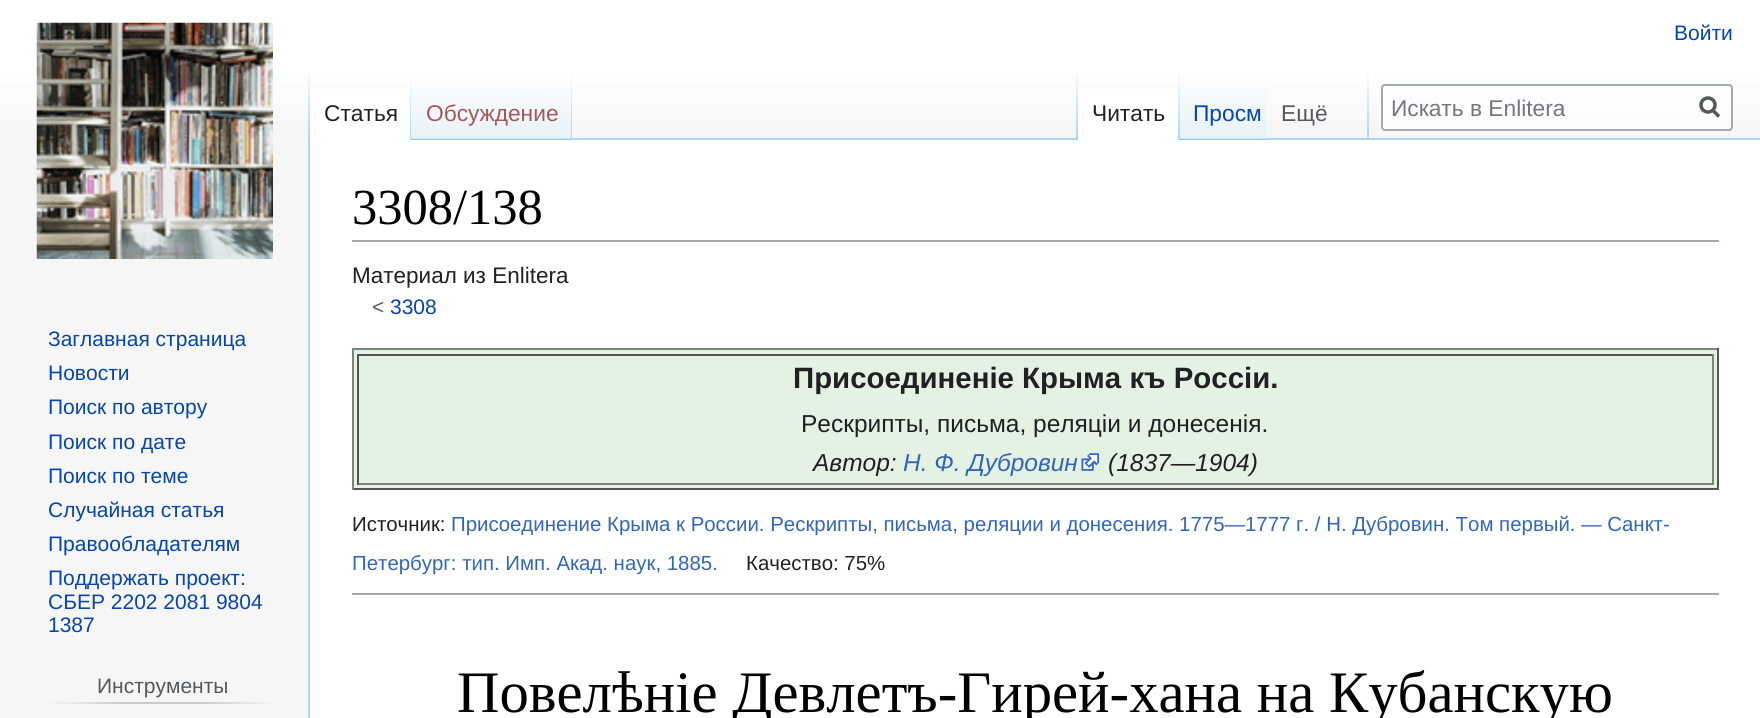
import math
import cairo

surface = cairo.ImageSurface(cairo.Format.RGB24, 1760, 718)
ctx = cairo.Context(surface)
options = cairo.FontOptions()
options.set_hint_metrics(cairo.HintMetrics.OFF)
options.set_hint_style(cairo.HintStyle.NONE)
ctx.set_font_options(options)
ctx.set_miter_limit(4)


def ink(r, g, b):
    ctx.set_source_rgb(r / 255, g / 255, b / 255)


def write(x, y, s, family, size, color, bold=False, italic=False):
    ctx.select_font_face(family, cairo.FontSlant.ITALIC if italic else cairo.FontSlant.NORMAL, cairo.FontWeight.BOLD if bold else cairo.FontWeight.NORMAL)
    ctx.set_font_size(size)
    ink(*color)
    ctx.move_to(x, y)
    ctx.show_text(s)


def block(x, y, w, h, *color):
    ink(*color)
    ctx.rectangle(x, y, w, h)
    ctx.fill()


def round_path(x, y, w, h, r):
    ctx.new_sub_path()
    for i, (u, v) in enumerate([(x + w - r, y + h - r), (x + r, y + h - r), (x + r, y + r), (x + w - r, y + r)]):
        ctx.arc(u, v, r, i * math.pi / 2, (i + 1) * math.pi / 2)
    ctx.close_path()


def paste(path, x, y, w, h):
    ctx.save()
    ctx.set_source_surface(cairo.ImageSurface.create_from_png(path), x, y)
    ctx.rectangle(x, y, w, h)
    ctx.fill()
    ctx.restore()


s1 = dict(family="Liberation Sans", size=21, color=(6, 69, 173))
s2 = dict(family="Liberation Sans", size=22.75, color=(32, 33, 34))
s3 = dict(family="Liberation Sans", size=22.75, color=(165, 88, 88))
s4 = dict(family="Liberation Sans", size=22.75, color=(6, 69, 173))
s5 = dict(family="Liberation Sans", size=22.75, color=(84, 89, 93))
s6 = dict(family="Liberation Sans", size=22.75, color=(114, 119, 125))
s7 = dict(family="Liberation Sans", size=21, color=(84, 89, 93))
s8 = dict(family="Liberation Serif", size=50.5, color=(0, 0, 0))
s9 = dict(family="Liberation Sans", size=22.5, color=(32, 33, 34))
s10 = dict(family="Liberation Sans", size=29.4, color=(32, 33, 34), bold=True)
s11 = dict(family="Liberation Sans", size=24.5, color=(32, 33, 34))
s12 = dict(family="Liberation Sans", size=24.5, color=(32, 33, 34), italic=True)
s13 = dict(family="Liberation Sans", size=24.5, color=(51, 102, 187), italic=True)
s14 = dict(family="Liberation Sans", size=20.42, color=(32, 33, 34))
s15 = dict(family="Liberation Sans", size=20.42, color=(51, 102, 187))
s16 = dict(family="Liberation Serif", size=58.75, color=(0, 0, 0))

ink(246, 246, 246)
ctx.paint()
gradient = cairo.LinearGradient(880, 0, 880, 140)
gradient.add_color_stop_rgba(0.5, 1, 1, 1, 1)
gradient.add_color_stop_rgba(1, 0.965, 0.965, 0.965, 1)
ctx.set_source(gradient)
ctx.rectangle(0, 0, 1760, 121)
ctx.fill()
write(1674, 40, "Войти", **s1)
block(308, 138, 2, 580, 167, 215, 249)
gradient = cairo.LinearGradient(309, 70, 309, 140)
gradient.add_color_stop_rgba(0, 0.655, 0.843, 0.976, 0)
gradient.add_color_stop_rgba(1, 0.655, 0.843, 0.976, 1)
ctx.set_source(gradient)
ctx.rectangle(308, 70, 2, 70)
ctx.fill()
block(310, 89, 100, 51, 255, 255, 255)
gradient = cairo.LinearGradient(410, 70, 410, 140)
gradient.add_color_stop_rgba(0, 1, 1, 1, 1)
gradient.add_color_stop_rgba(1, 0.655, 0.843, 0.976, 1)
ctx.set_source(gradient)
ctx.rectangle(410, 70, 1, 70)
ctx.fill()
write(324, 121, "Статья", **s2)
gradient = cairo.LinearGradient(492, 140, 492, 70)
gradient.add_color_stop_rgba(0, 0.467, 0.757, 0.965, 1)
gradient.add_color_stop_rgba(0.03, 0.91, 0.949, 0.973, 1)
gradient.add_color_stop_rgba(1, 1, 1, 1, 1)
ctx.set_source(gradient)
ctx.rectangle(411, 80, 161, 60)
ctx.fill()
gradient = cairo.LinearGradient(571, 70, 571, 140)
gradient.add_color_stop_rgba(0, 0.655, 0.843, 0.976, 0)
gradient.add_color_stop_rgba(1, 0.655, 0.843, 0.976, 1)
ctx.set_source(gradient)
ctx.rectangle(571, 70, 1, 70)
ctx.fill()
write(426, 121, "Обсуждение", **s3)
block(572, 138, 1188, 2, 167, 215, 249)
gradient = cairo.LinearGradient(1077, 70, 1077, 140)
gradient.add_color_stop_rgba(0, 0.655, 0.843, 0.976, 0)
gradient.add_color_stop_rgba(1, 0.655, 0.843, 0.976, 1)
ctx.set_source(gradient)
ctx.rectangle(1076, 70, 2, 70)
ctx.fill()
block(1078, 89, 100, 51, 255, 255, 255)
gradient = cairo.LinearGradient(1179, 70, 1179, 140)
gradient.add_color_stop_rgba(0, 1, 1, 1, 1)
gradient.add_color_stop_rgba(1, 0.655, 0.843, 0.976, 1)
ctx.set_source(gradient)
ctx.rectangle(1178, 70, 2, 70)
ctx.fill()
write(1092, 121, "Читать", **s2)
gradient = cairo.LinearGradient(1223, 140, 1223, 70)
gradient.add_color_stop_rgba(0, 0.467, 0.757, 0.965, 1)
gradient.add_color_stop_rgba(0.03, 0.91, 0.949, 0.973, 1)
gradient.add_color_stop_rgba(1, 1, 1, 1, 1)
ctx.set_source(gradient)
ctx.rectangle(1180, 80, 87, 60)
ctx.fill()
write(1193, 121, "Просм", **s4)
gradient = cairo.LinearGradient(1368, 70, 1368, 140)
gradient.add_color_stop_rgba(0, 0.655, 0.843, 0.976, 0)
gradient.add_color_stop_rgba(1, 0.655, 0.843, 0.976, 1)
ctx.set_source(gradient)
ctx.rectangle(1367, 70, 2, 70)
ctx.fill()
write(1281, 121, "Ещё", **s5)
ctx.set_source_rgba(1, 1, 1, 0.5)
round_path(1382, 85, 350, 45, 3)
ctx.fill_preserve()
ink(162, 169, 177)
ctx.stroke()
write(1391, 116, "Искать в Enlitera", **s6)
ctx.new_path()
ctx.move_to(1719, 116.5)
ctx.line_to(1712, 109.5)
ink(84, 89, 93)
ctx.set_line_width(3.5)
ctx.stroke()
ctx.arc(1708, 105, 7, 0, 2 * math.pi)
ctx.stroke()
paste("pic1.png", 36, 22, 237, 237)
write(48, 346, "Заглавная страница", **s1)
write(48, 380, "Новости", **s1)
write(48, 414, "Поиск по автору", **s1)
write(48, 449, "Поиск по дате", **s1)
write(48, 483, "Поиск по теме", **s1)
write(48, 517, "Случайная статья", **s1)
write(48, 551, "Правообладателям", **s1)
write(48, 585, "Поддержать проект:", **s1)
write(48, 609, "СБЕР 2202 2081 9804", **s1)
write(48, 632, "1387", **s1)
gradient = cairo.LinearGradient(47, 703, 277, 703)
gradient.add_color_stop_rgba(0, 0.965, 0.965, 0.965, 1)
gradient.add_color_stop_rgba(0.33, 0.784, 0.8, 0.82, 1)
gradient.add_color_stop_rgba(0.66, 0.784, 0.8, 0.82, 1)
gradient.add_color_stop_rgba(1, 0.965, 0.965, 0.965, 1)
ctx.set_source(gradient)
ctx.rectangle(47, 702, 230, 2)
ctx.fill()
write(97, 693, "Инструменты", **s7)
block(310, 140, 1450, 578, 255, 255, 255)
block(352, 240, 1367, 2, 162, 169, 177)
write(352, 224, "3308/138", **s8)
write(352, 283, "Материал из Enlitera", **s9)
write(372, 314, "<", **s7)
write(390, 314, "3308", **s1)
block(354, 350, 1363, 138, 228, 242, 228)
block(352, 348, 1367, 2, 128, 128, 128)
block(1717, 348, 2, 142, 85, 85, 85)
block(352, 488, 1367, 2, 85, 85, 85)
block(352, 348, 2, 142, 128, 128, 128)
block(357, 354, 1356, 2, 85, 85, 85)
block(1712, 354, 2, 131, 128, 128, 128)
block(357, 483, 1356, 2, 128, 128, 128)
block(357, 354, 2, 131, 85, 85, 85)
write(793, 388, "Присоединеніе Крыма къ Россіи.", **s10)
write(801, 432, "Рескрипты, письма, реляціи и донесенія.", **s11)
write(813, 471, "Автор:", **s12)
write(903, 471, "Н. Ф. Дубровин", **s13)
paste("pic2.png", 1081, 453, 18, 18)
write(1108, 471, "(1837—1904)", **s12)
write(352, 531, "Источник:", **s14)
write(451, 531, "Присоединение Крыма к России. Рескрипты, письма, реляции и донесения. 1775—1777 г. / Н. Дубровин. Том первый. — Санкт-", **s15)
write(352, 570, "Петербург: тип. Имп. Акад. наук, 1885.", **s15)
write(746, 570, "Качество: 75%", **s14)
block(352, 593, 1367, 2, 162, 169, 177)
write(457, 712, "Повелѣніе Девлетъ-Гирей-хана на Кубанскую", **s16)
surface.write_to_png("screenshot.png")
